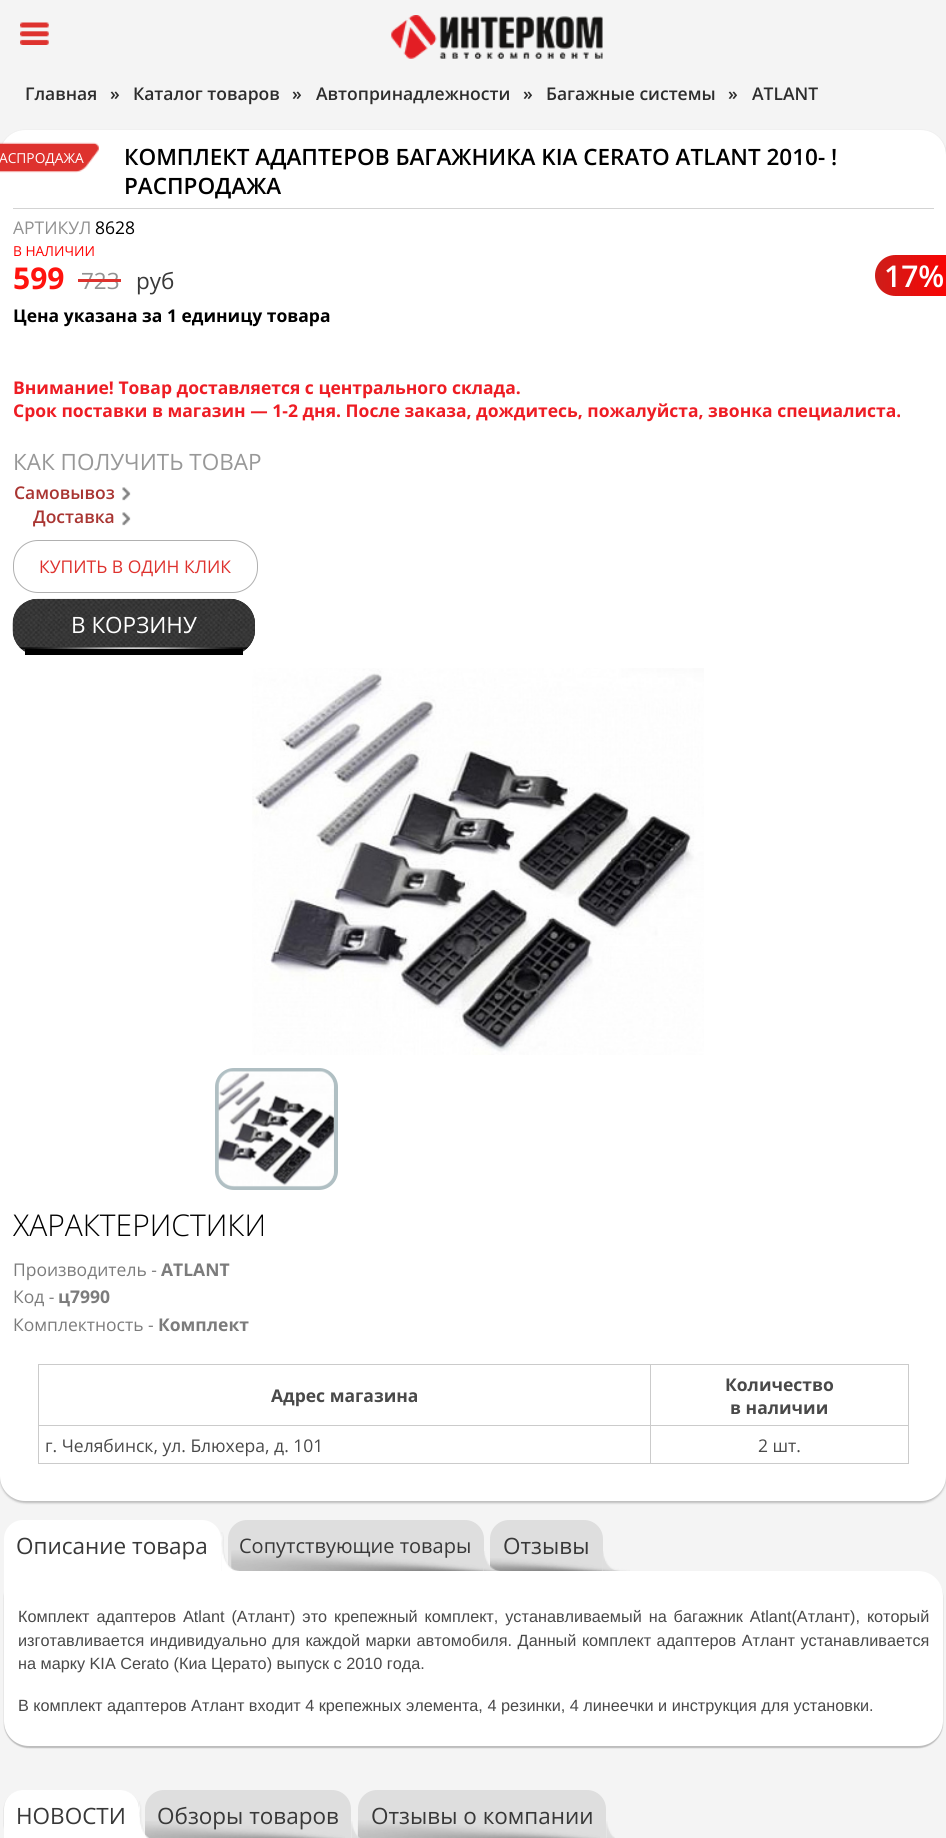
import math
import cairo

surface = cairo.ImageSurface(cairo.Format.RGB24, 946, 1838)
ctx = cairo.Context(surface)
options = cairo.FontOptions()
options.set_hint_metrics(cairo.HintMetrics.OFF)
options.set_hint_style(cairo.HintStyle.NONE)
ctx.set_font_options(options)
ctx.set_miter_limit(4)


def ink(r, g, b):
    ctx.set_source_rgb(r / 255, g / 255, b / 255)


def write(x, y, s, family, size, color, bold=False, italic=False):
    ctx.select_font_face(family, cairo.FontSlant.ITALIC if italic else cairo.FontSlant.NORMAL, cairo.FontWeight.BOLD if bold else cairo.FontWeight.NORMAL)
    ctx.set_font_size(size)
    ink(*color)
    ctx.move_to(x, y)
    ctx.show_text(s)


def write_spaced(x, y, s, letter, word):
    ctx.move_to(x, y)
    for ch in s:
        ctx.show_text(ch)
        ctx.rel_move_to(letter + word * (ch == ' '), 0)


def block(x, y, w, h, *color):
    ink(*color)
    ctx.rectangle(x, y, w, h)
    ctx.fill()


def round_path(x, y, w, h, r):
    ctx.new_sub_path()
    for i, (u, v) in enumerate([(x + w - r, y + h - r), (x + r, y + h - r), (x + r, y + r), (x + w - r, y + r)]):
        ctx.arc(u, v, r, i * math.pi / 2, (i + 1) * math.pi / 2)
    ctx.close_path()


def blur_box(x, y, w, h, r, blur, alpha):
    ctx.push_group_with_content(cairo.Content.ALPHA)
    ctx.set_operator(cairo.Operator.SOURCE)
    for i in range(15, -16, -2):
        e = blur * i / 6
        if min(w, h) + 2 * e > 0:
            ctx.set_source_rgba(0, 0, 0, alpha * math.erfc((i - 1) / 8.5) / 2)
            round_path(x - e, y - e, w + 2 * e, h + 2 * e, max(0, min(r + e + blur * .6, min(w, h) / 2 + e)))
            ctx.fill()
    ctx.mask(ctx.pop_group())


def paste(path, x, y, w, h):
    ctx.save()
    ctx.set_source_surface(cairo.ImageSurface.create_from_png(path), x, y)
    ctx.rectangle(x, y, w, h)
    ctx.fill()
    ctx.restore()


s1 = dict(family="Open Sans SemiBold", size=17.5, color=(45, 45, 45))
s2 = dict(family="Open Sans", size=13.75, color=(255, 255, 255))
s3 = dict(family="Open Sans SemiBold", size=22.5, color=(0, 0, 0))
s4 = dict(family="Open Sans", size=17.5, color=(145, 145, 145))
s5 = dict(family="Open Sans", size=17.5, color=(0, 0, 0))
s6 = dict(family="Open Sans", size=13.75, color=(255, 0, 0))
s7 = dict(family="Open Sans", size=30, color=(255, 19, 14), bold=True)
s8 = dict(family="Open Sans", size=22.5, color=(145, 145, 145))
s9 = dict(family="Open Sans", size=22.5, color=(56, 56, 56))
s10 = dict(family="Open Sans SemiBold", size=30, color=(255, 255, 255))
s11 = dict(family="Open Sans", size=17.5, color=(0, 0, 0), bold=True)
s12 = dict(family="Open Sans", size=17.5, color=(238, 29, 36), bold=True)
s13 = dict(family="Open Sans", size=22.5, color=(152, 152, 152))
s14 = dict(family="Open Sans SemiBold", size=17.5, color=(169, 53, 50))
s15 = dict(family="Open Sans", size=17.5, color=(222, 50, 46))
s16 = dict(family="Open Sans", size=22.5, color=(255, 255, 255))
s17 = dict(family="Open Sans Light", size=30, color=(0, 0, 0))
s18 = dict(family="Open Sans", size=17.5, color=(124, 124, 124))
s19 = dict(family="Open Sans", size=17.5, color=(124, 124, 124), bold=True)
s20 = dict(family="Open Sans", size=17.5, color=(73, 73, 73), bold=True)
s21 = dict(family="Open Sans", size=17.5, color=(73, 73, 73))
s22 = dict(family="Open Sans", size=20, color=(56, 56, 56))
s23 = dict(family="Liberation Sans", size=16.25, color=(73, 73, 73))

ink(244, 244, 244)
ctx.paint()
paste("pic1.png", 20, 22, 29, 23)
paste("pic2.png", 391, 15, 212, 44)
write(25, 100, "Главная", **s1)
write(110, 100, "»", **s1)
write(133, 100, "Каталог товаров", **s1)
write(292, 100, "»", **s1)
write(316, 100, "Автопринадлежности", **s1)
write(523, 100, "»", **s1)
write(546, 100, "Багажные системы", **s1)
write(728, 100, "»", **s1)
write(752, 100, "ATLANT", **s1)
ink(0, 0, 0)
blur_box(0, 131, 946, 1372, 25, 1, 0.23)
ink(255, 255, 255)
round_path(0, 130, 946, 1371, 25)
ctx.fill()
block(13, 208, 921, 1, 211, 211, 211)
paste("pic3.png", 0, 142, 99, 31)
write(-1, 163, "АСПРОДАЖА", **s2)
write(124, 165, "КОМПЛЕКТ АДАПТЕРОВ БАГАЖНИКА KIA CERATO ATLANT 2010- !", **s3)
write(124, 194, "РАСПРОДАЖА", **s3)
write(13, 234, "АРТИКУЛ", **s4)
write(95, 234, "8628", **s5)
write(13, 256, "В НАЛИЧИИ", **s6)
write(13, 289, "599", **s7)
write(81, 289, "723", **s8)
block(78, 279, 43, 3, 222, 50, 46)
write(136, 289, "руб", **s9)
gradient = cairo.LinearGradient(875, 276, 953, 276)
gradient.add_color_stop_rgba(0, 0.804, 0.118, 0.102, 1)
gradient.add_color_stop_rgba(1, 0.992, 0.004, 0.004, 1)
ctx.set_source(gradient)
ctx.new_path()
ctx.move_to(895.5, 255)
ctx.line_to(946, 255)
ctx.line_to(946, 296)
ctx.line_to(895.5, 296)
ctx.curve_to(884, 296, 875, 287, 875, 275.5)
ctx.curve_to(875, 264, 884, 255, 895.5, 255)
ctx.close_path()
ctx.fill()
write(884, 287, "17%", **s10)
write(13, 322, "Цена указана за 1 единицу товара", **s11)
write(13, 394, "Внимание! Товар доставляется с центрального склада.", **s12)
write(13, 417, "Срок поставки в магазин — 1-2 дня. После заказа, дождитесь, пожалуйста, звонка специалиста.", **s12)
write(13, 470, "КАК ПОЛУЧИТЬ ТОВАР", **s13)
write(14, 499, "Самовывоз", **s14)
paste("pic4.png", 122, 487, 9, 14)
write(33, 523, "Доставка", **s14)
paste("pic4.png", 122, 512, 9, 14)
round_path(13.5, 540.5, 244, 52, 24.5)
ink(176, 176, 176)
ctx.set_line_width(1)
ctx.stroke()
write(39, 573, "КУПИТЬ В ОДИН КЛИК", **s15)
ink(0, 0, 0)
round_path(13, 599, 242, 56, 25)
ctx.fill()
paste("pic5.png", 12, 598, 243, 54)
block(25, 649, 218, 6, 0, 0, 0)
write(71, 633, "В КОРЗИНУ", **s16)
paste("pic6.png", 252, 668, 452, 387)
ink(244, 244, 244)
round_path(217, 1070, 119, 118, 17)
ctx.fill_preserve()
ink(176, 191, 195)
ctx.set_line_width(4)
ctx.stroke()
paste("pic7.png", 218, 1071, 116, 116)
write(13, 1236, "ХАРАКТЕРИСТИКИ", **s17)
write(13, 1276, "Производитель -", **s18)
write(161, 1276, "ATLANT", **s19)
write(13, 1303, "Код -", **s18)
write(58, 1303, "ц7990", **s19)
write(13, 1331, "Комплектность -", **s18)
write(158, 1331, "Комплект", **s19)
block(650, 1364, 259, 1, 203, 203, 203)
block(650, 1425, 259, 1, 203, 203, 203)
block(908, 1425, 1, 39, 203, 203, 203)
block(650, 1463, 259, 1, 203, 203, 203)
block(650, 1425, 1, 39, 203, 203, 203)
block(38, 1425, 613, 1, 203, 203, 203)
block(650, 1364, 1, 62, 203, 203, 203)
block(38, 1364, 613, 1, 203, 203, 203)
block(38, 1463, 613, 1, 203, 203, 203)
block(38, 1425, 1, 39, 203, 203, 203)
block(38, 1364, 1, 62, 203, 203, 203)
write(271, 1402, "Адрес магазина", **s20)
block(908, 1364, 1, 62, 203, 203, 203)
write(725, 1391, "Количество", **s20)
write(730, 1414, "в наличии", **s20)
write(45, 1452, "г. Челябинск, ул. Блюхера, д. 101", **s21)
write(758, 1452, "2 шт.", **s21)
ink(255, 255, 255)
ctx.new_path()
ctx.move_to(23, 1520)
ctx.line_to(202, 1520)
ctx.curve_to(212.5, 1520, 221, 1528.5, 221, 1539)
ctx.line_to(221, 1571)
ctx.line_to(4, 1571)
ctx.line_to(4, 1539)
ctx.curve_to(4, 1528.5, 12.5, 1520, 23, 1520)
ctx.close_path()
ctx.fill()
write(16, 1554, "Описание товара", **s9)
ink(222, 222, 222)
ctx.new_path()
ctx.move_to(247, 1520)
ctx.line_to(465, 1520)
ctx.curve_to(475.5, 1520, 484, 1528.5, 484, 1539)
ctx.line_to(484, 1571)
ctx.line_to(228, 1571)
ctx.line_to(228, 1539)
ctx.curve_to(228, 1528.5, 236.5, 1520, 247, 1520)
ctx.close_path()
ctx.fill()
paste("pic9.png", 231, 1550, 253, 21)
paste("pic8.png", 221, 1532, 18, 39)
write(239, 1553, "Сопутствующие товары", **s22)
ink(222, 222, 222)
ctx.new_path()
ctx.move_to(509, 1520)
ctx.line_to(584, 1520)
ctx.curve_to(594.5, 1520, 603, 1528.5, 603, 1539)
ctx.line_to(603, 1571)
ctx.line_to(490, 1571)
ctx.line_to(490, 1539)
ctx.curve_to(490, 1528.5, 498.5, 1520, 509, 1520)
ctx.close_path()
ctx.fill()
paste("pic11.png", 490, 1558, 113, 13)
paste("pic10.png", 484, 1551, 16, 20)
write(503, 1554, "Отзывы", **s9)
paste("pic12.png", 602, 1551, 28, 20)
ink(0, 0, 0)
blur_box(4, 1573, 939, 175, 25, 0.5, 0.23)
ink(255, 255, 255)
ctx.new_path()
ctx.move_to(4, 1571)
ctx.line_to(918, 1571)
ctx.curve_to(932, 1571, 943, 1582, 943, 1596)
ctx.line_to(943, 1721)
ctx.curve_to(943, 1735, 932, 1746, 918, 1746)
ctx.line_to(29, 1746)
ctx.curve_to(15, 1746, 4, 1735, 4, 1721)
ctx.close_path()
ctx.fill()
ctx.select_font_face("Liberation Sans")
ctx.set_font_size(16.25)
ink(73, 73, 73)
write_spaced(18, 1622, "Комплект адаптеров Atlant (Атлант) это крепежный комплект, устанавливаемый на багажник Atlant(Атлант), который", 0, 2.4)
write_spaced(18, 1646, "изготавливается индивидуально для каждой марки автомобиля. Данный комплект адаптеров Атлант устанавливается", 0, 1)
write(18, 1669, "на марку KIA Cerato (Киа Церато) выпуск с 2010 года.", **s23)
write(18, 1711, "В комплект адаптеров Атлант входит 4 крепежных элемента, 4 резинки, 4 линеечки и инструкция для установки.", **s23)
ink(0, 0, 0)
blur_box(4, 1791, 135, 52, 19, 0.5, 0.23)
ink(255, 255, 255)
ctx.new_path()
ctx.move_to(23, 1790)
ctx.line_to(120, 1790)
ctx.curve_to(130.5, 1790, 139, 1798.5, 139, 1809)
ctx.line_to(139, 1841)
ctx.line_to(4, 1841)
ctx.line_to(4, 1809)
ctx.curve_to(4, 1798.5, 12.5, 1790, 23, 1790)
ctx.close_path()
ctx.fill()
write(16, 1824, "НОВОСТИ", **s9)
ink(222, 222, 222)
ctx.new_path()
ctx.move_to(164, 1790)
ctx.line_to(332, 1790)
ctx.curve_to(342.5, 1790, 351, 1798.5, 351, 1809)
ctx.line_to(351, 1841)
ctx.line_to(145, 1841)
ctx.line_to(145, 1809)
ctx.curve_to(145, 1798.5, 153.5, 1790, 164, 1790)
ctx.close_path()
ctx.fill()
paste("pic14.png", 145, 1821, 200, 17)
paste("pic13.png", 139, 1801, 10, 37)
write(157, 1824, "Обзоры товаров", **s9)
ink(222, 222, 222)
ctx.new_path()
ctx.move_to(377, 1790)
ctx.line_to(587, 1790)
ctx.curve_to(597.5, 1790, 606, 1798.5, 606, 1809)
ctx.line_to(606, 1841)
ctx.line_to(358, 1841)
ctx.line_to(358, 1809)
ctx.curve_to(358, 1798.5, 366.5, 1790, 377, 1790)
ctx.close_path()
ctx.fill()
paste("pic16.png", 357, 1820, 243, 18)
paste("pic15.png", 351, 1821, 9, 17)
write(371, 1824, "Отзывы о компании", **s9)
paste("pic17.png", 606, 1821, 9, 17)
surface.write_to_png("screenshot.png")
